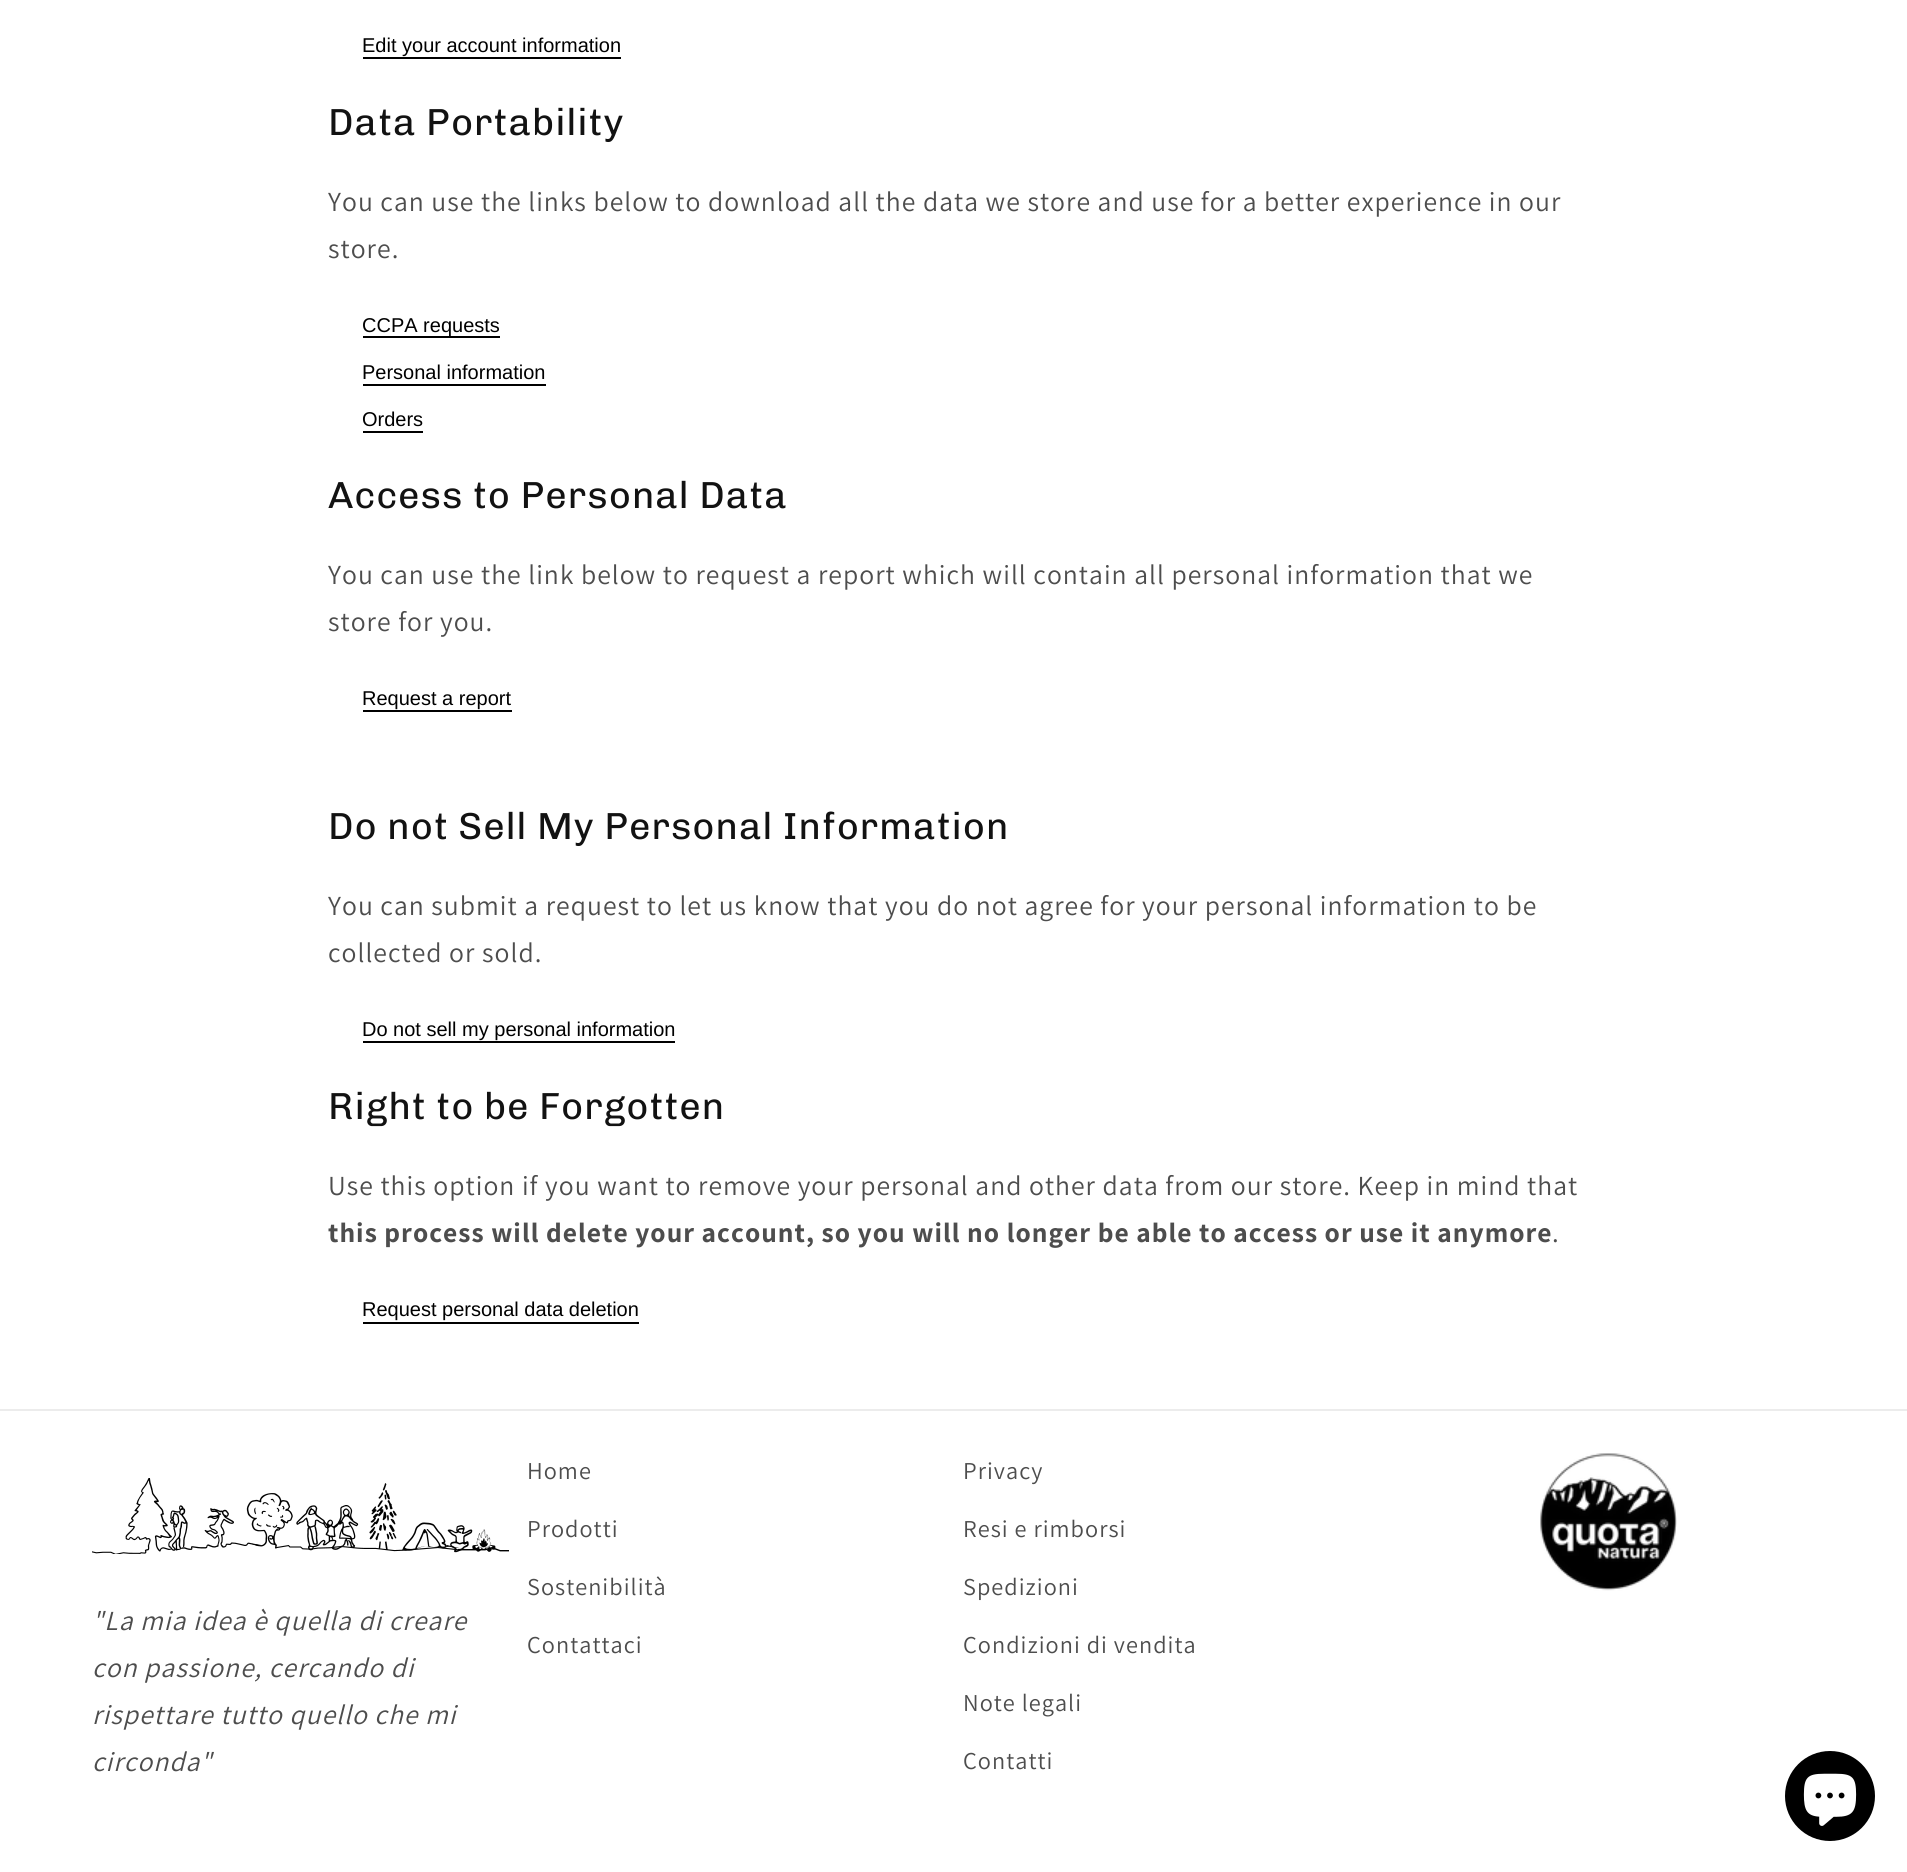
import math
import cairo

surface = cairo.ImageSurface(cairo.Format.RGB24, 1907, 1872)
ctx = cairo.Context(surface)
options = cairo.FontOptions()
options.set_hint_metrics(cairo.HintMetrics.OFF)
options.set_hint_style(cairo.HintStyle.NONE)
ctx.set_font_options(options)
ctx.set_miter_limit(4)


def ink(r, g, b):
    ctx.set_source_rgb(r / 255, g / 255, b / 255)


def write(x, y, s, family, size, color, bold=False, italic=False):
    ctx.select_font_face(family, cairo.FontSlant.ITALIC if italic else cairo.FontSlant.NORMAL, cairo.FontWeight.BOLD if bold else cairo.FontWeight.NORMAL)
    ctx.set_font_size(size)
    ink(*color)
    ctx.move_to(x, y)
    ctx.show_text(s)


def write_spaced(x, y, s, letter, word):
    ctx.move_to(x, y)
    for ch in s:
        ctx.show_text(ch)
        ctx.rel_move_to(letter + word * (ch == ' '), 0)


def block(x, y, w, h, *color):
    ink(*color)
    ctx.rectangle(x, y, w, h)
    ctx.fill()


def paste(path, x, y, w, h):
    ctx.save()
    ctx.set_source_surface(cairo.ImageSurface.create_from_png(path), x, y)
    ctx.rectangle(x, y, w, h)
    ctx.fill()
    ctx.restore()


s1 = dict(family="Liberation Sans", size=20, color=(0, 0, 0))

ink(255, 255, 255)
ctx.paint()
block(363, 57, 258, 2, 0, 0, 0)
write(362, 52, "Edit your account information", **s1)
ctx.select_font_face("Chivo")
ctx.set_font_size(37.75)
ink(18, 18, 18)
write_spaced(328, 135, "Data Portability", 0.95, 0)
ctx.select_font_face("Assistant")
ctx.set_font_size(27.6)
ink(77, 77, 77)
write_spaced(328, 211, "You can use the links below to download all the data we store and use for a better experience in our", 1.03, 0)
write_spaced(328, 258, "store.", 1.03, 0)
block(363, 336, 137, 2, 0, 0, 0)
write(362, 332, "CCPA requests", **s1)
block(363, 384, 183, 2, 0, 0, 0)
write(362, 379, "Personal information", **s1)
block(363, 431, 60, 2, 0, 0, 0)
write(362, 426, "Orders", **s1)
ctx.select_font_face("Chivo")
ctx.set_font_size(37.75)
ink(18, 18, 18)
write_spaced(328, 508, "Access to Personal Data", 0.95, 0)
ctx.select_font_face("Assistant")
ctx.set_font_size(27.6)
ink(77, 77, 77)
write_spaced(328, 584, "You can use the link below to request a report which will contain all personal information that we", 1.03, 0)
write_spaced(328, 631, "store for you.", 1.03, 0)
block(363, 710, 149, 2, 0, 0, 0)
write(362, 705, "Request a report", **s1)
ctx.select_font_face("Chivo")
ctx.set_font_size(37.75)
ink(18, 18, 18)
write_spaced(328, 839, "Do not Sell My Personal Information", 0.95, 0)
ctx.select_font_face("Assistant")
ctx.set_font_size(27.6)
ink(77, 77, 77)
write_spaced(328, 915, "You can submit a request to let us know that you do not agree for your personal information to be", 1.03, 0)
write_spaced(328, 962, "collected or sold.", 1.03, 0)
block(363, 1041, 312, 2, 0, 0, 0)
write(362, 1036, "Do not sell my personal information", **s1)
ctx.select_font_face("Chivo")
ctx.set_font_size(37.75)
ink(18, 18, 18)
write_spaced(328, 1119, "Right to be Forgotten", 0.95, 0)
ctx.select_font_face("Assistant")
ctx.set_font_size(27.6)
ink(77, 77, 77)
write_spaced(328, 1195, "Use this option if you want to remove your personal and other data from our store. Keep in mind that", 1.03, 0)
ctx.select_font_face("Assistant", cairo.FontSlant.NORMAL, cairo.FontWeight.BOLD)
write_spaced(328, 1242, "this process will delete your account, so you will no longer be able to access or use it anymore", 1.03, 0)
ctx.select_font_face("Assistant")
write_spaced(1552, 1242, ".", 1.03, 0)
block(363, 1322, 276, 2, 0, 0, 0)
write(362, 1316, "Request personal data deletion", **s1)
block(0, 1409, 1907, 2, 236, 236, 236)
ctx.select_font_face("Assistant")
ctx.set_font_size(24.25)
ink(77, 77, 77)
write_spaced(527, 1479, "Home", 1.03, 0)
write_spaced(527, 1537, "Prodotti", 1.03, 0)
write_spaced(527, 1595, "Sostenibilità", 1.03, 0)
write_spaced(527, 1653, "Contattaci", 1.03, 0)
write_spaced(963, 1479, "Privacy", 1.03, 0)
write_spaced(963, 1537, "Resi e rimborsi", 1.03, 0)
write_spaced(963, 1595, "Spedizioni", 1.03, 0)
write_spaced(963, 1653, "Condizioni di vendita", 1.03, 0)
write_spaced(963, 1711, "Note legali", 1.03, 0)
write_spaced(963, 1769, "Contatti", 1.03, 0)
paste("pic1.png", 1540, 1453, 137, 138)
paste("pic2.png", 92, 1478, 417, 76)
ctx.select_font_face("Assistant", cairo.FontSlant.ITALIC)
ctx.set_font_size(27.6)
write_spaced(92, 1630, "\"La mia idea è quella di creare", 1.03, 0)
write_spaced(92, 1677, "con passione, cercando di", 1.03, 0)
write_spaced(92, 1724, "rispettare tutto quello che mi", 1.03, 0)
write_spaced(92, 1771, "circonda\"", 1.03, 0)
ink(0, 0, 0)
ctx.new_path()
ctx.arc(1830, 1796, 45, 0, 2 * math.pi)
ctx.fill()
paste("pic3.png", 1803, 1773, 54, 53)
surface.write_to_png("screenshot.png")
